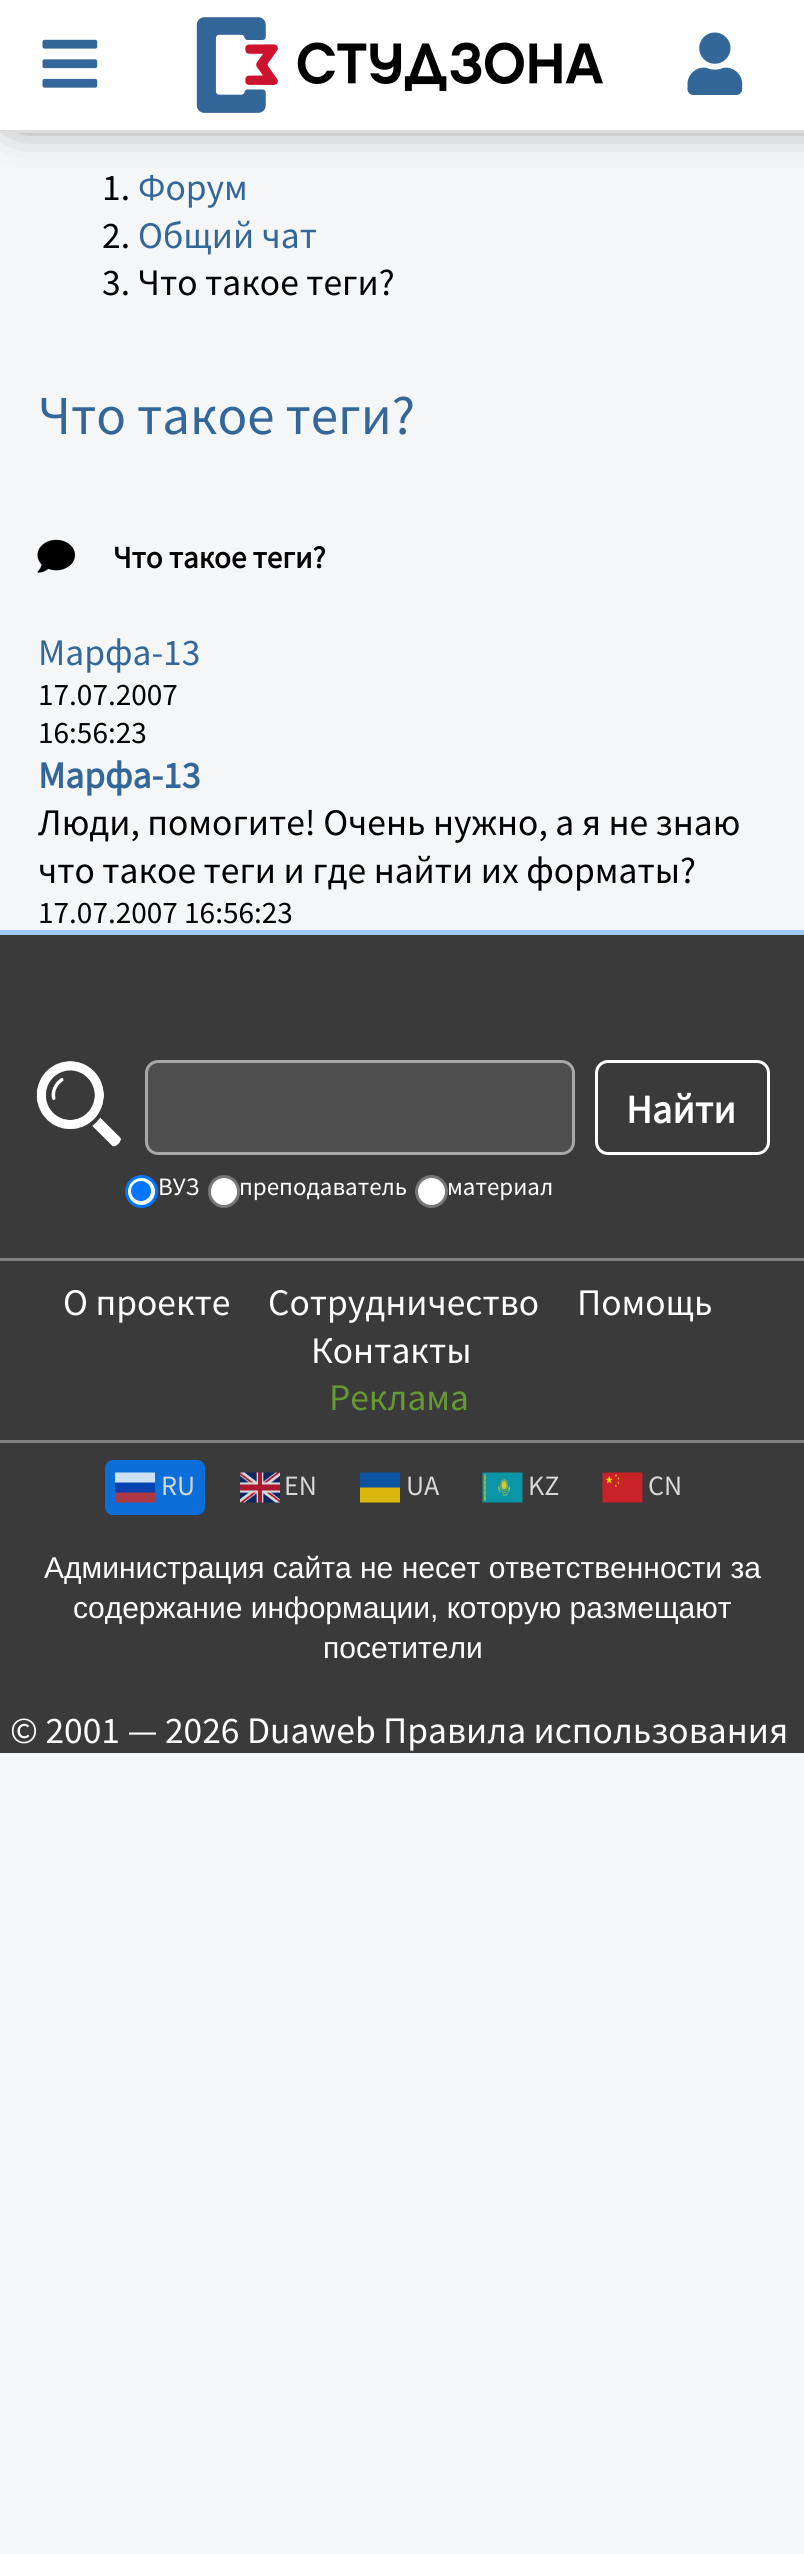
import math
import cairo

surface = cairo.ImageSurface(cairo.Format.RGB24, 804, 2554)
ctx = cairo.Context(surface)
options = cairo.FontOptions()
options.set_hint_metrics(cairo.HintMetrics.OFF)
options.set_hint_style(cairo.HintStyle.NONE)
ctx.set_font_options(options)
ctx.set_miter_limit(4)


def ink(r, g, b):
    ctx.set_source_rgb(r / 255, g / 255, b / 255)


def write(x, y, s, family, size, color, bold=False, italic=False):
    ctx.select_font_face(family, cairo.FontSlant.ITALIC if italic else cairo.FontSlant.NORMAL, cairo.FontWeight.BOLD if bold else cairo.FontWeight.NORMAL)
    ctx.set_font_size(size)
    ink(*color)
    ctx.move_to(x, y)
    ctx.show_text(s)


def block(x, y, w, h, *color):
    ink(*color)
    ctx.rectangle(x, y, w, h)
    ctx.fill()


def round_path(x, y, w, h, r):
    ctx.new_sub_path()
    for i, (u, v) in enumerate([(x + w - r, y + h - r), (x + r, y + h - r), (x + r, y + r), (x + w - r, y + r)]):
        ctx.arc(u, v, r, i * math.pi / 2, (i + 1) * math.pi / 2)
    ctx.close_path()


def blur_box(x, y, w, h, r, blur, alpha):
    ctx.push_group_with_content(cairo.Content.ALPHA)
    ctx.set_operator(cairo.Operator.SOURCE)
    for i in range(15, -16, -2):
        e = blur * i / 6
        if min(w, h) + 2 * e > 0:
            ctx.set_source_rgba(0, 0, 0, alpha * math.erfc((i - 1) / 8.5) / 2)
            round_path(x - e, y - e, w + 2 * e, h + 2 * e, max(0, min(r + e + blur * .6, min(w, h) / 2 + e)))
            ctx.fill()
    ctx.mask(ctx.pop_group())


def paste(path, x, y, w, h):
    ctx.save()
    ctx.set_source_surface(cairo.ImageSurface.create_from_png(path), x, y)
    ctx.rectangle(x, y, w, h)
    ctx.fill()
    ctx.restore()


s1 = dict(family="Source Sans Pro", size=37.5, color=(0, 0, 0))
s2 = dict(family="Source Sans Pro", size=37.5, color=(51, 102, 153))
s3 = dict(family="Source Sans Pro", size=55, color=(51, 102, 153))
s4 = dict(family="Source Sans Pro", size=31, color=(0, 0, 0), bold=True)
s5 = dict(family="Source Sans Pro", size=31.25, color=(0, 0, 0))
s6 = dict(family="Source Sans Pro", size=37.5, color=(51, 102, 153), bold=True)
s7 = dict(family="Source Sans Pro", size=40, color=(255, 255, 255), bold=True)
s8 = dict(family="Source Sans Pro", size=25, color=(255, 255, 255))
s9 = dict(family="Source Sans Pro", size=37.5, color=(255, 255, 255))
s10 = dict(family="Source Sans Pro", size=37.5, color=(102, 153, 51))
s11 = dict(family="Source Sans Pro", size=28, color=(216, 216, 216))
s12 = dict(family="Liberation Sans", size=30, color=(255, 255, 255))

ink(244, 246, 248)
ctx.paint()
ink(0, 0, 0)
blur_box(18, -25, 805, 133, 0, 24, 1)
block(0, 0, 804, 130, 255, 255, 255)
block(0, 130, 804, 3, 221, 221, 221)
paste("pic1.png", 42, 39, 56, 49)
paste("pic2.png", 196, 17, 407, 96)
paste("pic3.png", 687, 32, 56, 63)
write(102, 200, "1.", **s1)
write(138, 200, "Форум", **s2)
write(102, 248, "2.", **s1)
write(138, 248, "Общий чат", **s2)
write(102, 295, "3. Что такое теги?", **s1)
write(38, 434, "Что такое теги?", **s3)
paste("pic4.png", 37, 539, 38, 34)
write(113, 568, "Что такое теги?", **s4)
write(38, 665, "Марфа-13", **s2)
write(38, 705, "17.07.2007", **s5)
write(38, 743, "16:56:23", **s5)
write(38, 788, "Марфа-13", **s6)
write(38, 835, "Люди, помогите! Очень нужно, а я не знаю", **s1)
write(38, 883, "что такое теги и где найти их форматы?", **s1)
write(38, 923, "17.07.2007 16:56:23", **s5)
block(0, 935, 804, 818, 58, 58, 58)
block(0, 930, 804, 5, 160, 201, 255)
paste("pic5.png", 36, 1061, 85, 86)
ink(78, 78, 78)
round_path(146.5, 1061.5, 427, 92, 11.5)
ctx.fill_preserve()
ink(167, 167, 167)
ctx.set_line_width(3)
ctx.stroke()
round_path(596.5, 1061.5, 172, 92, 11.5)
ink(255, 255, 255)
ctx.stroke()
write(626, 1123, "Найти", **s7)
ctx.new_path()
ctx.arc(141.5, 1191.5, 15, 0, 2 * math.pi)
ctx.fill_preserve()
ink(0, 117, 255)
ctx.stroke()
ctx.arc(141, 1191, 10, 0, 2 * math.pi)
ctx.fill()
write(158, 1195, "ВУЗ", **s8)
round_path(209.5, 1176.5, 29, 30, 14.5)
ctx.fill_preserve()
ink(118, 118, 118)
ctx.stroke()
write(239, 1195, "преподаватель", **s8)
ctx.new_path()
ctx.arc(431.5, 1191.5, 15, 0, 2 * math.pi)
ctx.fill_preserve()
ink(118, 118, 118)
ctx.stroke()
write(447, 1195, "материал", **s8)
block(0, 1258, 804, 3, 128, 128, 128)
write(63, 1315, "О проекте", **s9)
write(268, 1315, "Сотрудничество", **s9)
write(577, 1315, "Помощь", **s9)
write(311, 1363, "Контакты", **s9)
write(329, 1410, "Реклама", **s10)
block(0, 1440, 804, 3, 128, 128, 128)
ink(12, 110, 216)
round_path(105, 1460, 100, 55, 8)
ctx.fill()
paste("pic6.png", 115, 1472, 40, 31)
write(161, 1495, "RU", **s11)
paste("pic7.png", 240, 1472, 40, 31)
write(284, 1495, "EN", **s11)
paste("pic8.png", 360, 1472, 40, 31)
write(406, 1495, "UA", **s11)
paste("pic9.png", 482, 1472, 41, 31)
write(528, 1495, "KZ", **s11)
paste("pic10.png", 602, 1472, 41, 31)
write(648, 1495, "CN", **s11)
write(44, 1578, "Администрация сайта не несет ответственности за", **s12)
write(73, 1618, "содержание информации, которую размещают", **s12)
write(323, 1658, "посетители", **s12)
write(10, 1743, "© 2001 — 2026 Duaweb Правила использования", **s9)
surface.write_to_png("screenshot.png")
